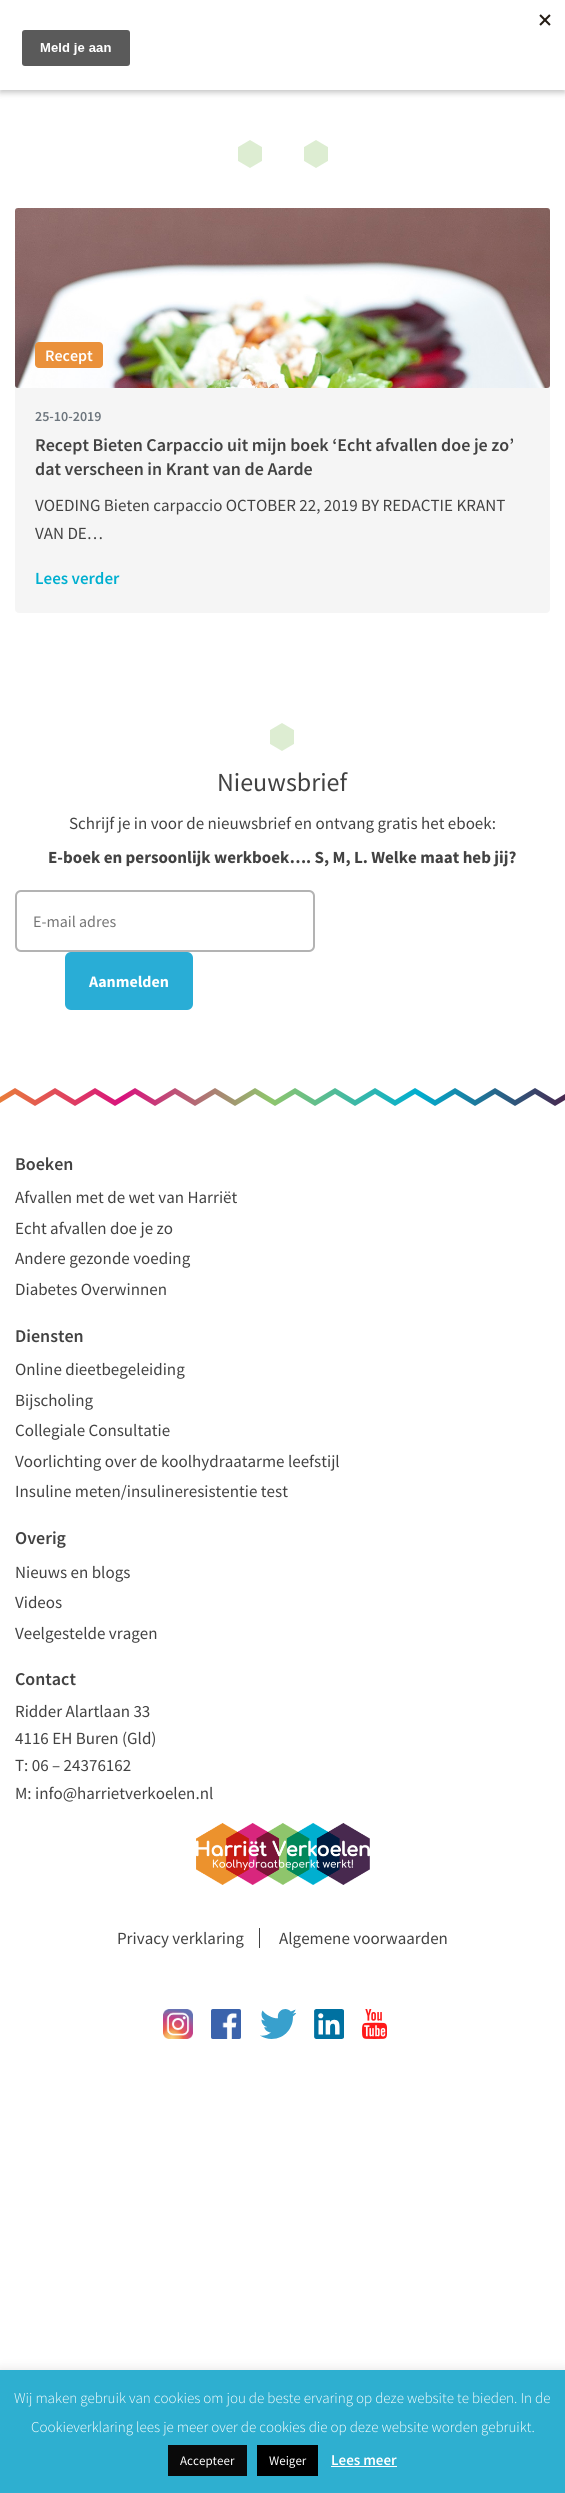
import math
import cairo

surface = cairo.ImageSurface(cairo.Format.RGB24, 565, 2493)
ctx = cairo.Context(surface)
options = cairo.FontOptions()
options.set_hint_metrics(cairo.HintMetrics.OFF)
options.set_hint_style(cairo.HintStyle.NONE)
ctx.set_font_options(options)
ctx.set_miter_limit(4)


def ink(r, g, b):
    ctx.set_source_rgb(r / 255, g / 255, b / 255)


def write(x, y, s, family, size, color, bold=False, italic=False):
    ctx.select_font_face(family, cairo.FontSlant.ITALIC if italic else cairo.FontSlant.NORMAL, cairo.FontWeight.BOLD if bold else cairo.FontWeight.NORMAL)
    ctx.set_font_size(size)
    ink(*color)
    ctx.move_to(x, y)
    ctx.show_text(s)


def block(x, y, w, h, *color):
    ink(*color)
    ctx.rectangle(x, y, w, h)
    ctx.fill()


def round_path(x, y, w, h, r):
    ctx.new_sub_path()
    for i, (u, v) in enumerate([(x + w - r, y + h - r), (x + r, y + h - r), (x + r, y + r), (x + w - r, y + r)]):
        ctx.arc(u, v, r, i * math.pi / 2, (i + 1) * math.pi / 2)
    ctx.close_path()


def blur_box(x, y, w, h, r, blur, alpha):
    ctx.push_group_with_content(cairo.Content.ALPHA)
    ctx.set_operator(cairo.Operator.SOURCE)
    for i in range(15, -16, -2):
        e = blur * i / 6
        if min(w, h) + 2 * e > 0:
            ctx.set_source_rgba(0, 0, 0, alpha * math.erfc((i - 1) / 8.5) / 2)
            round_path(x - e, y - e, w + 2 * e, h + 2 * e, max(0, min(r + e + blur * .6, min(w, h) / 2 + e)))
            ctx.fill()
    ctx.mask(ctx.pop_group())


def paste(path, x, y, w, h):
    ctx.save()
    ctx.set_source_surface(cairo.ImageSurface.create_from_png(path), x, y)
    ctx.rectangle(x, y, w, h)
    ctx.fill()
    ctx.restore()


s1 = dict(family="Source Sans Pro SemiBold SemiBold", size=16, color=(255, 255, 255))
s2 = dict(family="Source Sans Pro SemiBold SemiBold", size=14, color=(108, 117, 125))
s3 = dict(family="Source Sans Pro SemiBold SemiBold", size=18, color=(66, 66, 66))
s4 = dict(family="Source Sans Pro", size=17, color=(66, 66, 66))
s5 = dict(family="Source Sans Pro SemiBold SemiBold", size=17, color=(0, 175, 208))
s6 = dict(family="Source Sans Pro", size=26, color=(66, 66, 66))
s7 = dict(family="Source Sans Pro", size=17, color=(66, 66, 66), bold=True)
s8 = dict(family="Source Sans Pro", size=16, color=(117, 117, 117))
s9 = dict(family="Source Sans Pro", size=16, color=(255, 255, 255), bold=True)
s10 = dict(family="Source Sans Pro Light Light", size=15, color=(255, 255, 255))
s11 = dict(family="Source Sans Pro", size=13, color=(255, 255, 255))
s12 = dict(family="Source Sans Pro SemiBold SemiBold", size=15, color=(255, 255, 255))

ink(255, 255, 255)
ctx.paint()
ink(0, 0, 0)
blur_box(0, 3, 565, 90, 0, 3, 0.2)
ink(124, 124, 124)
blur_box(0, 2, 565, 88, 0, 2, 0.11)
block(0, 0, 565, 90, 255, 255, 255)
paste("pic1.png", 22, 14, 529, 52)
paste("pic2.png", 238, 140, 24, 28)
paste("pic2.png", 304, 140, 24, 28)
ink(245, 245, 245)
round_path(15, 208, 535, 405, 4)
ctx.fill()
paste("pic3.png", 15, 208, 535, 180)
ink(234, 145, 59)
round_path(35, 342, 68, 26, 4)
ctx.fill()
write(45, 361, "Recept", **s1)
write(35, 421, "25-10-2019", **s2)
write(35, 451, "Recept Bieten Carpaccio uit mijn boek ‘Echt afvallen doe je zo’", **s3)
write(35, 475, "dat verscheen in Krant van de Aarde", **s3)
write(35, 511, "VOEDING Bieten carpaccio OCTOBER 22, 2019 BY REDACTIE KRANT", **s4)
write(35, 539, "VAN DE…", **s4)
write(35, 584, "Lees verder", **s5)
paste("pic2.png", 270, 723, 24, 28)
write(217, 791, "Nieuwsbrief", **s6)
write(69, 829, "Schrijf je in voor de nieuwsbrief en ontvang gratis het eboek:", **s4)
write(48, 863, "E-boek en persoonlijk werkboek…. S, M, L. Welke maat heb jij?", **s7)
round_path(16, 891, 298, 60, 5)
ink(179, 179, 179)
ctx.stroke()
write(33, 927, "E-mail adres", **s8)
ink(41, 173, 214)
round_path(65, 952, 128, 58, 6)
ctx.fill()
write(89, 987, "Aanmelden", **s9)
gradient = cairo.LinearGradient(-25, 1097, 565, 1097)
gradient.add_color_stop_rgba(0, 0.925, 0.573, 0.176, 1)
gradient.add_color_stop_rgba(0.25, 0.847, 0.071, 0.49, 1)
gradient.add_color_stop_rgba(0.5, 0.561, 0.773, 0.424, 1)
gradient.add_color_stop_rgba(0.75, 0, 0.686, 0.816, 1)
gradient.add_color_stop_rgba(1, 0.282, 0.157, 0.31, 1)
ctx.set_source(gradient)
ctx.rectangle(0, 1088, 565, 18)
ctx.fill()
paste("pic4.png", 0, 1088, 565, 12)
paste("pic5.png", 0, 1094, 565, 12)
write(15, 1170, "Boeken", **s3)
write(15, 1203, "Afvallen met de wet van Harriët", **s4)
write(15, 1234, "Echt afvallen doe je zo", **s4)
write(15, 1264, "Andere gezonde voeding", **s4)
write(15, 1295, "Diabetes Overwinnen", **s4)
write(15, 1342, "Diensten", **s3)
write(15, 1375, "Online dieetbegeleiding", **s4)
write(15, 1406, "Bijscholing", **s4)
write(15, 1436, "Collegiale Consultatie", **s4)
write(15, 1467, "Voorlichting over de koolhydraatarme leefstijl", **s4)
write(15, 1497, "Insuline meten/insulineresistentie test", **s4)
write(15, 1544, "Overig", **s3)
write(15, 1578, "Nieuws en blogs", **s4)
write(15, 1608, "Videos", **s4)
write(15, 1639, "Veelgestelde vragen", **s4)
write(15, 1685, "Contact", **s3)
write(15, 1717, "Ridder Alartlaan 33", **s4)
write(15, 1744, "4116 EH Buren (Gld)", **s4)
write(15, 1771, "T: 06 – 24376162", **s4)
write(15, 1799, "M: info@harrietverkoelen.nl", **s4)
paste("pic6.png", 196, 1823, 174, 62)
block(259, 1928, 1, 20, 66, 66, 66)
write(117, 1944, "Privacy verklaring", **s4)
write(279, 1944, "Algemene voorwaarden", **s4)
paste("pic7.png", 163, 2009, 30, 30)
paste("pic8.png", 211, 2009, 30, 30)
paste("pic9.png", 260, 2009, 36, 30)
paste("pic10.png", 314, 2009, 30, 30)
paste("pic11.png", 362, 2009, 25, 30)
ink(172, 171, 171)
blur_box(0, 2369, 565, 123, 0, 5, 0.3)
block(0, 2370, 565, 123, 46, 175, 208)
write(14, 2403, "Wij maken gebruik van cookies om jou de beste ervaring op deze website te bieden. In de", **s10)
write(31, 2432, "Cookieverklaring lees je meer over de cookies die op deze website worden gebruikt.", **s10)
block(168, 2445, 79, 31, 10, 10, 10)
write(180, 2465, "Accepteer", **s11)
block(257, 2445, 61, 31, 0, 0, 0)
write(269, 2465, "Weiger", **s11)
write(331, 2465, "Lees meer", **s12)
block(331, 2466, 66, 1, 255, 255, 255)
surface.write_to_png("screenshot.png")
